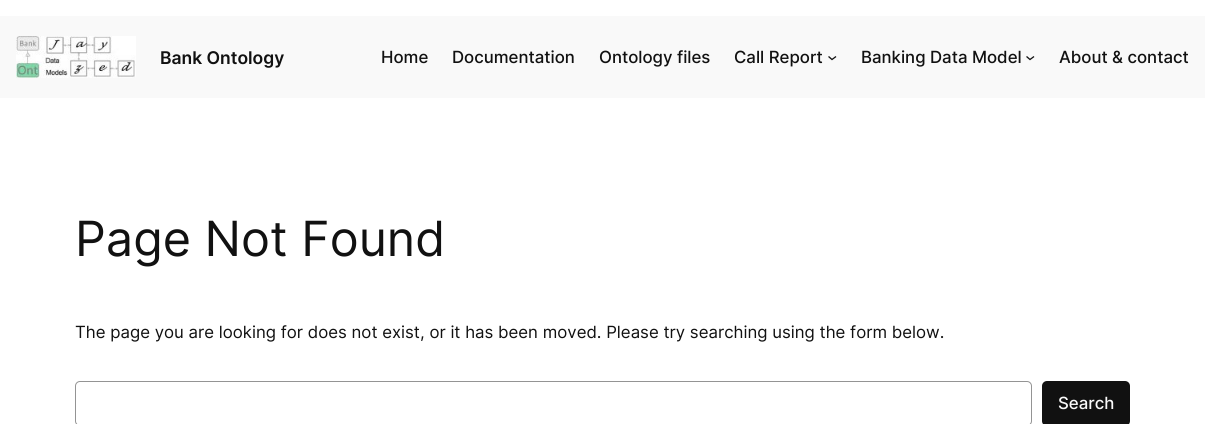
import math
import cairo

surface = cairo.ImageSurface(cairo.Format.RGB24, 1205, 424)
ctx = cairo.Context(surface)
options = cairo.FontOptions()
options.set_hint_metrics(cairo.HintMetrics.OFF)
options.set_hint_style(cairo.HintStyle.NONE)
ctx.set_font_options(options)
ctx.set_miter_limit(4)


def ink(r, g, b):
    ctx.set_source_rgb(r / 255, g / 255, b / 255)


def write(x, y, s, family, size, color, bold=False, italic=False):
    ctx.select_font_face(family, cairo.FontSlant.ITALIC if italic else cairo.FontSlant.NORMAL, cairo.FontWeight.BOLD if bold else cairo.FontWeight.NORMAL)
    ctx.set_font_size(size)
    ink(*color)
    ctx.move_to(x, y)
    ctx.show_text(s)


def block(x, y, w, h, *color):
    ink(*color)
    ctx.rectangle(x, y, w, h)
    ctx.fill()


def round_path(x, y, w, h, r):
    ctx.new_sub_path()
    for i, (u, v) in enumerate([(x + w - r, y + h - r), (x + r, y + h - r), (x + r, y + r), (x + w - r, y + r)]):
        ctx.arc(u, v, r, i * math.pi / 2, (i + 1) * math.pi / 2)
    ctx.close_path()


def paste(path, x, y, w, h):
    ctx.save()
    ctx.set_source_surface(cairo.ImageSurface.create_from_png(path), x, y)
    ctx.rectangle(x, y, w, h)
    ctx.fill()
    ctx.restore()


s1 = dict(family="Inter SemiBold", size=17.5, color=(17, 17, 17))
s2 = dict(family="Inter Medium", size=16.8, color=(17, 17, 17))
s3 = dict(family="Inter", size=48.5, color=(17, 17, 17))
s4 = dict(family="Inter", size=16.8, color=(17, 17, 17))
s5 = dict(family="Inter Medium", size=16.8, color=(249, 249, 249))

ink(255, 255, 255)
ctx.paint()
block(0, 16, 1205, 82, 249, 249, 249)
paste("pic1.png", 16, 36, 120, 42)
write(160, 64, "Bank Ontology", **s1)
write(381, 63, "Home", **s2)
write(452, 63, "Documentation", **s2)
write(599, 63, "Ontology files", **s2)
write(734, 63, "Call Report", **s2)
ctx.new_path()
ctx.move_to(828.5, 56.5)
ctx.line_to(832, 59.5)
ctx.line_to(836, 56.5)
ctx.set_line_width(1.3)
ctx.stroke()
write(861, 63, "Banking Data Model", **s2)
ctx.new_path()
ctx.move_to(1026.5, 56.5)
ctx.line_to(1030, 59.5)
ctx.line_to(1034, 56.5)
ctx.stroke()
write(1059, 63, "About & contact", **s2)
write(75, 256, "Page Not Found", **s3)
write(75, 338, "The page you are looking for does not exist, or it has been moved. Please try searching using the form below.", **s4)
round_path(75.5, 381.5, 956, 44, 4.5)
ink(148, 148, 148)
ctx.set_line_width(1)
ctx.stroke()
ink(17, 17, 17)
round_path(1042, 381, 88, 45, 5)
ctx.fill()
write(1058, 409, "Search", **s5)
surface.write_to_png("screenshot.png")
